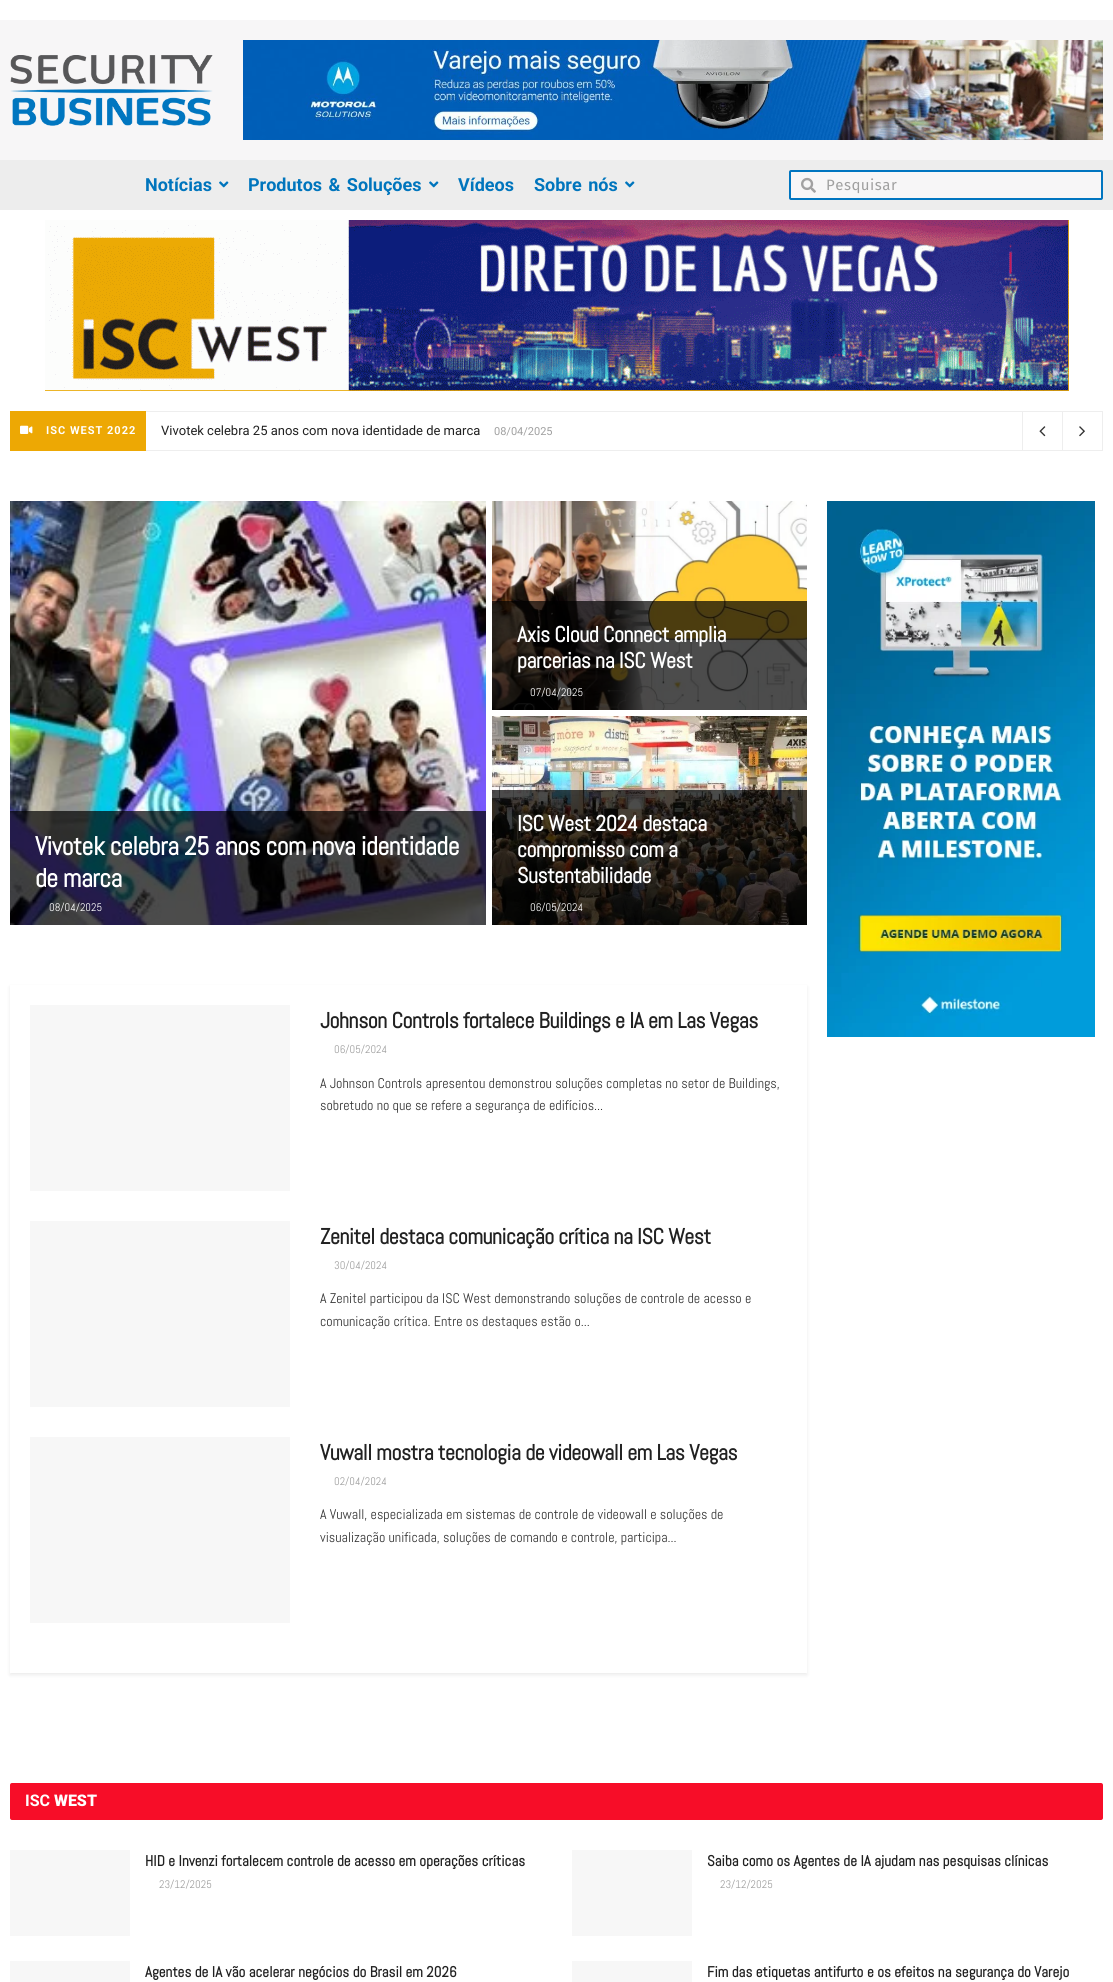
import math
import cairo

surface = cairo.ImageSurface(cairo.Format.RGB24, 1113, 1982)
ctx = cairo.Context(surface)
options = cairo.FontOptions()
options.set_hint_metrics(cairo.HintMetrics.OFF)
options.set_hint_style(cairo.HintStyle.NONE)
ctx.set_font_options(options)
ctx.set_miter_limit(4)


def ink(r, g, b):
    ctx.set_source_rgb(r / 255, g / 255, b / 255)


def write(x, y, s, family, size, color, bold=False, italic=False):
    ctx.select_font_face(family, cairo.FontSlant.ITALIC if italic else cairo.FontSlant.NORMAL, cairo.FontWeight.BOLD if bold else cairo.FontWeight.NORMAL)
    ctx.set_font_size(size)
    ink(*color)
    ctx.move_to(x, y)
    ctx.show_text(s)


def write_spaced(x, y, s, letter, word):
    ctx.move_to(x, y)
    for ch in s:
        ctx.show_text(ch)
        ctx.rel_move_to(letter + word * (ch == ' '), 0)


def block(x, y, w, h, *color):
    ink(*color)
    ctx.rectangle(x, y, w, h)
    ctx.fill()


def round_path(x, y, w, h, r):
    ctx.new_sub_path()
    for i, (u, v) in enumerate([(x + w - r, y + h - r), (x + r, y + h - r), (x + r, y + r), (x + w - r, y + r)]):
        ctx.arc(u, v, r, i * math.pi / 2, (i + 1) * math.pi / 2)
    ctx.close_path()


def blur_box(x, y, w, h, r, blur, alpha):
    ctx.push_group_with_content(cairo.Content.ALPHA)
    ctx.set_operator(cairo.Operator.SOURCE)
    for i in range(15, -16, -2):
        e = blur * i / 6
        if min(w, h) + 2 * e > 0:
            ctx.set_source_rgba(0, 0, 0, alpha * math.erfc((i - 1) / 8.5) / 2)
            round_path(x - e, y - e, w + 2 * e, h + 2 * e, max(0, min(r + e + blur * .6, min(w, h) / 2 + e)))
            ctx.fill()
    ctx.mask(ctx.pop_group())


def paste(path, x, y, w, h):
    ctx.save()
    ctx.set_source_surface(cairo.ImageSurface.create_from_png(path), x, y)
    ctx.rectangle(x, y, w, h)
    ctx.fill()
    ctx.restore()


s1 = dict(family="Roboto", size=18, color=(0, 117, 189), bold=True)
s2 = dict(family="Roboto", size=13, color=(33, 33, 33))
s3 = dict(family="Roboto", size=11, color=(160, 160, 160))
s4 = dict(family="Abel", size=11, color=(255, 255, 255))
s5 = dict(family="Abel", size=11, color=(160, 160, 160))
s6 = dict(family="Abel", size=14, color=(51, 51, 51))
s7 = dict(family="Roboto", size=16, color=(255, 255, 255), bold=True)
s8 = dict(family="Roboto Black", size=16, color=(255, 255, 255))
s9 = dict(family="Abel", size=15, color=(33, 33, 33), bold=True)

ink(255, 255, 255)
ctx.paint()
block(0, 20, 1113, 140, 247, 246, 247)
paste("pic1.png", 10, 55, 203, 71)
paste("pic2.png", 243, 40, 860, 100)
block(0, 160, 1113, 50, 237, 237, 237)
write(145, 191, "Notícias", **s1)
paste("pic3.png", 219, 181, 10, 7)
write_spaced(248, 191, "Produtos & Soluções", 0, 2)
paste("pic3.png", 429, 181, 10, 7)
write(458, 191, "Vídeos", **s1)
write_spaced(534, 191, "Sobre nós", 0, 2)
paste("pic3.png", 625, 181, 10, 7)
ink(247, 246, 247)
round_path(790, 171, 312, 28, 1)
ctx.fill_preserve()
ink(0, 117, 192)
ctx.stroke()
paste("pic4.png", 801, 177, 15, 16)
ctx.select_font_face("Fira Sans")
ctx.set_font_size(15)
ink(160, 160, 160)
write_spaced(826, 190, "Pesquisar", 0.5, 0)
paste("pic5.png", 45, 220, 1024, 171)
block(10, 411, 136, 40, 237, 168, 4)
paste("pic6.png", 20, 425, 13, 9)
ctx.select_font_face("Roboto", cairo.FontSlant.NORMAL, cairo.FontWeight.BOLD)
ctx.set_font_size(11)
ink(255, 255, 255)
write_spaced(46, 434, "ISC WEST 2022", 1, 0)
block(146, 411, 957, 1, 238, 238, 238)
block(1102, 411, 1, 40, 238, 238, 238)
block(146, 450, 957, 1, 238, 238, 238)
write(161, 435, "Vivotek celebra 25 anos com nova identidade de marca", **s2)
write(494, 435, "08/04/2025", **s3)
block(1022, 412, 1, 38, 238, 238, 238)
paste("pic7.png", 1039, 426, 7, 11)
block(1062, 412, 1, 38, 238, 238, 238)
paste("pic8.png", 1079, 426, 6, 11)
paste("pic9.png", 10, 501, 476, 424)
ctx.set_source_rgba(0, 0, 0, 0.7)
ctx.rectangle(10, 811, 476, 114)
ctx.fill()
ctx.select_font_face("Abel", cairo.FontSlant.NORMAL, cairo.FontWeight.BOLD)
ctx.set_font_size(26)
ink(255, 255, 255)
write_spaced(35, 855, "Vivotek celebra 25 anos com nova identidade", -0.5, 0)
write_spaced(35, 887, "de marca", -0.5, 0)
write(49, 911, "08/04/2025", **s4)
paste("pic10.png", 492, 501, 315, 209)
ctx.set_source_rgba(0, 0, 0, 0.7)
ctx.rectangle(492, 601, 315, 109)
ctx.fill()
ctx.select_font_face("Abel", cairo.FontSlant.NORMAL, cairo.FontWeight.BOLD)
ctx.set_font_size(22)
ink(255, 255, 255)
write_spaced(517, 642, "Axis Cloud Connect amplia", -0.45, 0)
write_spaced(517, 668, "parcerias na ISC West", -0.45, 0)
write(530, 696, "07/04/2025", **s4)
paste("pic11.png", 492, 716, 315, 209)
ctx.set_source_rgba(0, 0, 0, 0.7)
ctx.rectangle(492, 790, 315, 135)
ctx.fill()
ctx.select_font_face("Abel", cairo.FontSlant.NORMAL, cairo.FontWeight.BOLD)
ctx.set_font_size(22)
ink(255, 255, 255)
write_spaced(517, 831, "ISC West 2024 destaca", -0.45, 0)
write_spaced(517, 857, "compromisso com a", -0.45, 0)
write_spaced(517, 883, "Sustentabilidade", -0.45, 0)
write(530, 911, "06/05/2024", **s4)
ctx.save()
ctx.set_fill_rule(cairo.FillRule.EVEN_ODD)
ctx.new_path()
ctx.move_to(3, 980)
ctx.line_to(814, 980)
ctx.line_to(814, 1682)
ctx.line_to(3, 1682)
ctx.close_path()
ctx.move_to(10, 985)
ctx.line_to(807, 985)
ctx.line_to(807, 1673)
ctx.line_to(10, 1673)
ctx.close_path()
ctx.clip()
ink(0, 0, 0)
blur_box(10, 987, 797, 688, 0, 2, 0.08)
ctx.restore()
block(30, 1005, 260, 186, 247, 247, 247)
ctx.select_font_face("Abel", cairo.FontSlant.NORMAL, cairo.FontWeight.BOLD)
ctx.set_font_size(22)
ink(33, 33, 33)
write_spaced(320, 1028, "Johnson Controls fortalece Buildings e IA em Las Vegas", -0.45, 0)
write(334, 1053, "06/05/2024", **s5)
write(320, 1088, "A Johnson Controls apresentou demonstrou soluções completas no setor de Buildings,", **s6)
write(320, 1110, "sobretudo no que se refere a segurança de edifícios...", **s6)
block(30, 1221, 260, 186, 247, 247, 247)
ctx.select_font_face("Abel", cairo.FontSlant.NORMAL, cairo.FontWeight.BOLD)
ctx.set_font_size(22)
ink(33, 33, 33)
write_spaced(320, 1244, "Zenitel destaca comunicação crítica na ISC West", -0.45, 0)
write(334, 1269, "30/04/2024", **s5)
write(320, 1303, "A Zenitel participou da ISC West demonstrando soluções de controle de acesso e", **s6)
write(320, 1326, "comunicação crítica. Entre os destaques estão o...", **s6)
block(30, 1437, 260, 186, 247, 247, 247)
ctx.select_font_face("Abel", cairo.FontSlant.NORMAL, cairo.FontWeight.BOLD)
ctx.set_font_size(22)
ink(33, 33, 33)
write_spaced(320, 1460, "Vuwall mostra tecnologia de videowall em Las Vegas", -0.45, 0)
write(334, 1485, "02/04/2024", **s5)
write(320, 1519, "A Vuwall, especializada em sistemas de controle de videowall e soluções de", **s6)
write(320, 1542, "visualização unificada, soluções de comando e controle, participa...", **s6)
paste("pic12.png", 827, 501, 268, 536)
ink(247, 13, 40)
round_path(10, 1783, 1093, 37, 2)
ctx.fill()
write(25, 1806, "ISC", **s7)
write(54, 1806, "WEST", **s8)
block(10, 1850, 120, 86, 247, 247, 247)
write(145, 1866, "HID e Invenzi fortalecem controle de acesso em operações críticas", **s9)
write(159, 1888, "23/12/2025", **s5)
block(572, 1850, 120, 86, 247, 247, 247)
write(707, 1866, "Saiba como os Agentes de IA ajudam nas pesquisas clínicas", **s9)
write(720, 1888, "23/12/2025", **s5)
block(10, 1961, 120, 21, 247, 247, 247)
write(145, 1977, "Agentes de IA vão acelerar negócios do Brasil em 2026", **s9)
block(572, 1961, 120, 21, 247, 247, 247)
write(707, 1977, "Fim das etiquetas antifurto e os efeitos na segurança do Varejo", **s9)
surface.write_to_png("screenshot.png")
